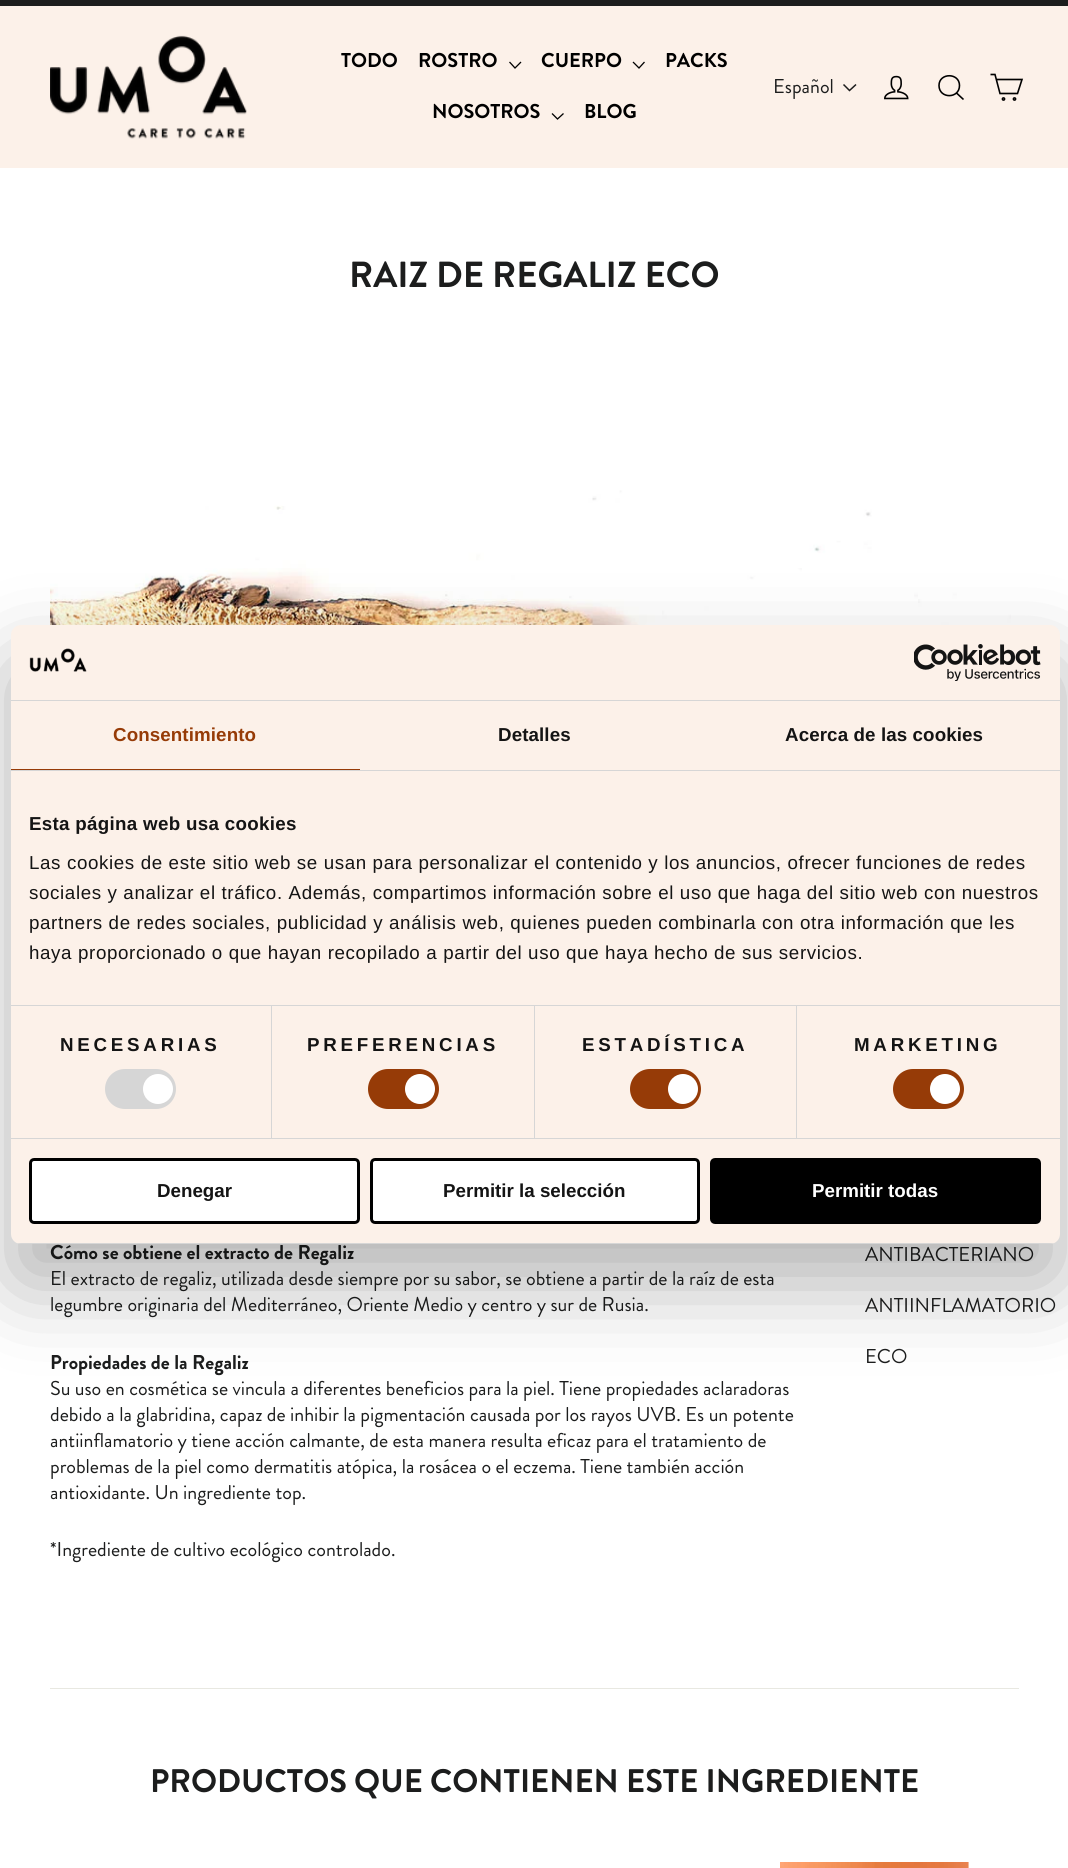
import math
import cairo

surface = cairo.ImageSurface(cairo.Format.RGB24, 1068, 1868)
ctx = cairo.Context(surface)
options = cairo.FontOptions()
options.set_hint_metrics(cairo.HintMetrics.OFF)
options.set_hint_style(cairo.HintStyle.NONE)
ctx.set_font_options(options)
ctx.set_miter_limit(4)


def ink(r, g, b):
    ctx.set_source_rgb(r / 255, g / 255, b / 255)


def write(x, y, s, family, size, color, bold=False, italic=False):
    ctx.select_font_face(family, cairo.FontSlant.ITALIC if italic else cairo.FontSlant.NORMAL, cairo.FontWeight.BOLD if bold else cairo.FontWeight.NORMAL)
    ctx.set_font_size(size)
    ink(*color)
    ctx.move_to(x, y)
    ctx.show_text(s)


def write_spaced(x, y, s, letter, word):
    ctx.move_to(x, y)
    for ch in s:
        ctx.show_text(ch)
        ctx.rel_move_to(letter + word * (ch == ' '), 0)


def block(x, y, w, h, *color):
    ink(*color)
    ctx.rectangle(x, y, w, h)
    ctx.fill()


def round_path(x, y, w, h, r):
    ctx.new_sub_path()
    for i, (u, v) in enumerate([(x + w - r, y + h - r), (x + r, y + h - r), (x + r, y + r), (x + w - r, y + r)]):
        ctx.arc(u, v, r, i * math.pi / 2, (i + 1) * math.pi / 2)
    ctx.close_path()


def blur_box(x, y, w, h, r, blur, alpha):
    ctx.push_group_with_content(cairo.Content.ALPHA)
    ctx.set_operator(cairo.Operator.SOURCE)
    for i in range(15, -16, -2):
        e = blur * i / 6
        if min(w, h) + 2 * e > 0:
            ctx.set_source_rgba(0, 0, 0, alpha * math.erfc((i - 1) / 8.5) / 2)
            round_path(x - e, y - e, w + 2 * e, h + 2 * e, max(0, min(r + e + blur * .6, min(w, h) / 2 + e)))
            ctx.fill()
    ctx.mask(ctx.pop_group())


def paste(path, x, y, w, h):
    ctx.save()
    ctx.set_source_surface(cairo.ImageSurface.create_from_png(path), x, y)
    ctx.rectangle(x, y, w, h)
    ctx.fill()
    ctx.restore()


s1 = dict(family="Brandon Grotesque", size=20, color=(0, 0, 0), bold=True)
s2 = dict(family="Brandon Grotesque", size=20, color=(28, 29, 29))
s3 = dict(family="Brandon Grotesque", size=36.25, color=(28, 29, 29), bold=True)
s4 = dict(family="Brandon Grotesque", size=20, color=(28, 29, 29), bold=True)
s5 = dict(family="Brandon Grotesque", size=32.6, color=(28, 29, 29), bold=True)
s6 = dict(family="Liberation Sans", size=18.75, color=(20, 20, 20), bold=True)
s7 = dict(family="Liberation Sans", size=18.75, color=(255, 255, 255), bold=True)

ink(255, 255, 255)
ctx.paint()
block(0, 0, 1068, 6, 28, 29, 29)
block(0, 6, 1068, 162, 252, 241, 233)
paste("pic1.png", 50, 35, 197, 104)
write(341, 67, "TODO", **s1)
write(418, 67, "ROSTRO", **s1)
ctx.new_path()
ctx.move_to(509.5, 62)
ctx.line_to(515, 68)
ctx.line_to(521, 62)
ctx.set_line_width(1.3)
ctx.stroke()
write(541, 67, "CUERPO", **s1)
ctx.new_path()
ctx.move_to(633, 62)
ctx.line_to(639, 68)
ctx.line_to(644.5, 62)
ctx.stroke()
write(665, 67, "PACKS", **s1)
write(432, 118, "NOSOTROS", **s1)
ctx.new_path()
ctx.move_to(552, 113.5)
ctx.line_to(557.5, 119)
ctx.line_to(563.5, 113.5)
ctx.stroke()
write(584, 118, "BLOG", **s1)
write(773, 93, "Español", **s2)
ctx.new_path()
ctx.move_to(843.5, 84.5)
ctx.line_to(849.5, 90.5)
ctx.line_to(856, 84.5)
ctx.set_line_width(1.5)
ctx.stroke()
paste("pic2.png", 884, 75, 25, 25)
ctx.new_path()
ctx.move_to(959.5, 85.5)
ctx.curve_to(959.5, 99, 939, 99, 939, 85.5)
ctx.curve_to(939, 72.5, 959.5, 72.5, 959.5, 85.5)
ctx.close_path()
ctx.move_to(963.5, 99.5)
ctx.line_to(956.5, 93)
ink(0, 0, 0)
ctx.set_line_width(1.6)
ctx.stroke()
ctx.new_path()
ctx.move_to(996.5, 79.5)
ctx.line_to(1022, 79.5)
ctx.line_to(1017.5, 93.5)
ctx.line_to(1000, 93.5)
ctx.line_to(995, 74.5)
ctx.line_to(990.5, 74.5)
ctx.stroke()
ctx.arc(1003.5, 99, 1.1, 0, 2 * math.pi)
ctx.stroke()
ctx.arc(1014.5, 99, 1.1, 0, 2 * math.pi)
ctx.stroke()
write(349, 287, "RAIZ DE REGALIZ ECO", **s3)
paste("pic3.png", 50, 490, 969, 135)
write(50, 1259, "Cómo se obtiene el extracto de Regaliz", **s4)
write(50, 1285, "El extracto de regaliz, utilizada desde siempre por su sabor, se obtiene a partir de la raíz de esta", **s2)
write(50, 1311, "legumbre originaria del Mediterráneo, Oriente Medio y centro y sur de Rusia.", **s2)
write(50, 1369, "Propiedades de la Regaliz", **s4)
write(50, 1395, "Su uso en cosmética se vincula a diferentes beneficios para la piel. Tiene propiedades aclaradoras", **s2)
write(50, 1421, "debido a la glabridina, capaz de inhibir la pigmentación causada por los rayos UVB. Es un potente", **s2)
write(50, 1447, "antiinflamatorio y tiene acción calmante, de esta manera resulta eficaz para el tratamiento de", **s2)
write(50, 1473, "problemas de la piel como dermatitis atópica, la rosácea o el eczema. Tiene también acción", **s2)
write(50, 1499, "antioxidante. Un ingrediente top.", **s2)
write(50, 1556, "*Ingrediente de cultivo ecológico controlado.", **s2)
write(865, 1261, "ANTIBACTERIANO", **s2)
write(865, 1312, "ANTIINFLAMATORIO", **s2)
write(865, 1363, "ECO", **s2)
block(50, 1688, 969, 1, 232, 232, 225)
write(150, 1792, "PRODUCTOS QUE CONTIENEN ESTE INGREDIENTE", **s5)
paste("pic4.png", 780, 1862, 189, 6)
ink(0, 0, 0)
blur_box(11, 665, 1049, 619, 10, 42.5, 0.3)
ink(252, 241, 233)
round_path(11, 625, 1049, 619, 10)
ctx.fill()
block(11, 700, 1049, 1, 214, 214, 214)
paste("pic5.png", 29, 648, 58, 24)
paste("pic6.png", 914, 644, 127, 37)
block(11, 770, 1049, 1, 214, 214, 214)
block(11, 769, 349, 1, 150, 59, 7)
ctx.select_font_face("Liberation Sans", cairo.FontSlant.NORMAL, cairo.FontWeight.BOLD)
ctx.set_font_size(18.75)
write_spaced(113, 741, "Consentimiento", 0.1, 0)
ink(20, 20, 20)
write_spaced(498, 741, "Detalles", 0.1, 0)
write_spaced(785, 741, "Acerca de las cookies", 0.1, 0)
block(11, 1005, 1049, 1, 214, 214, 214)
ink(20, 20, 20)
write_spaced(29, 830, "Esta página web usa cookies", 0.3, 0)
ctx.select_font_face("Liberation Sans")
write_spaced(29, 869, "Las cookies de este sitio web se usan para personalizar el contenido y los anuncios, ofrecer funciones de redes", 0.62, 0)
write_spaced(29, 899, "sociales y analizar el tráfico. Además, compartimos información sobre el uso que haga del sitio web con nuestros", 0.62, 0)
write_spaced(29, 929, "partners de redes sociales, publicidad y análisis web, quienes pueden combinarla con otra información que les", 0.62, 0)
write_spaced(29, 959, "haya proporcionado o que hayan recopilado a partir del uso que haya hecho de sus servicios.", 0.62, 0)
block(11, 1138, 1049, 1, 214, 214, 214)
block(271, 1006, 1, 132, 214, 214, 214)
ctx.select_font_face("Liberation Sans", cairo.FontSlant.NORMAL, cairo.FontWeight.BOLD)
ink(20, 20, 20)
write_spaced(60, 1051, "NECESARIAS", 3.75, 0)
ink(214, 214, 214)
round_path(105, 1069, 71, 40, 20)
ctx.fill()
ink(255, 255, 255)
ctx.arc(158, 1089, 15, 0, 2 * math.pi)
ctx.fill()
block(534, 1006, 1, 132, 214, 214, 214)
ink(20, 20, 20)
write_spaced(307, 1051, "PREFERENCIAS", 3.75, 0)
ink(150, 59, 7)
round_path(368, 1069, 71, 40, 20)
ctx.fill()
ink(255, 255, 255)
ctx.arc(420, 1089, 15, 0, 2 * math.pi)
ctx.fill()
block(796, 1006, 1, 132, 214, 214, 214)
ink(20, 20, 20)
write_spaced(582, 1051, "ESTADÍSTICA", 3.75, 0)
ink(150, 59, 7)
round_path(630, 1069, 71, 40, 20)
ctx.fill()
ink(255, 255, 255)
ctx.arc(683, 1089, 15, 0, 2 * math.pi)
ctx.fill()
ink(20, 20, 20)
write_spaced(854, 1051, "MARKETING", 3.75, 0)
ink(150, 59, 7)
round_path(893, 1069, 71, 40, 20)
ctx.fill()
ink(255, 255, 255)
ctx.arc(945, 1089, 15, 0, 2 * math.pi)
ctx.fill()
ctx.save()
round_path(11, 625, 1049, 619, 10)
ctx.clip()
block(11, 1243, 1049, 1, 214, 214, 214)
ctx.restore()
round_path(30.5, 1159.5, 328, 63, 3.5)
ctx.fill_preserve()
ink(0, 0, 0)
ctx.set_line_width(3)
ctx.stroke()
write(157, 1197, "Denegar", **s6)
ink(255, 255, 255)
round_path(371.5, 1159.5, 327, 63, 3.5)
ctx.fill_preserve()
ink(0, 0, 0)
ctx.stroke()
write(443, 1197, "Permitir la selección", **s6)
ink(0, 0, 0)
round_path(711.5, 1159.5, 328, 63, 3.5)
ctx.fill_preserve()
ctx.stroke()
write(812, 1197, "Permitir todas", **s7)
surface.write_to_png("screenshot.png")
